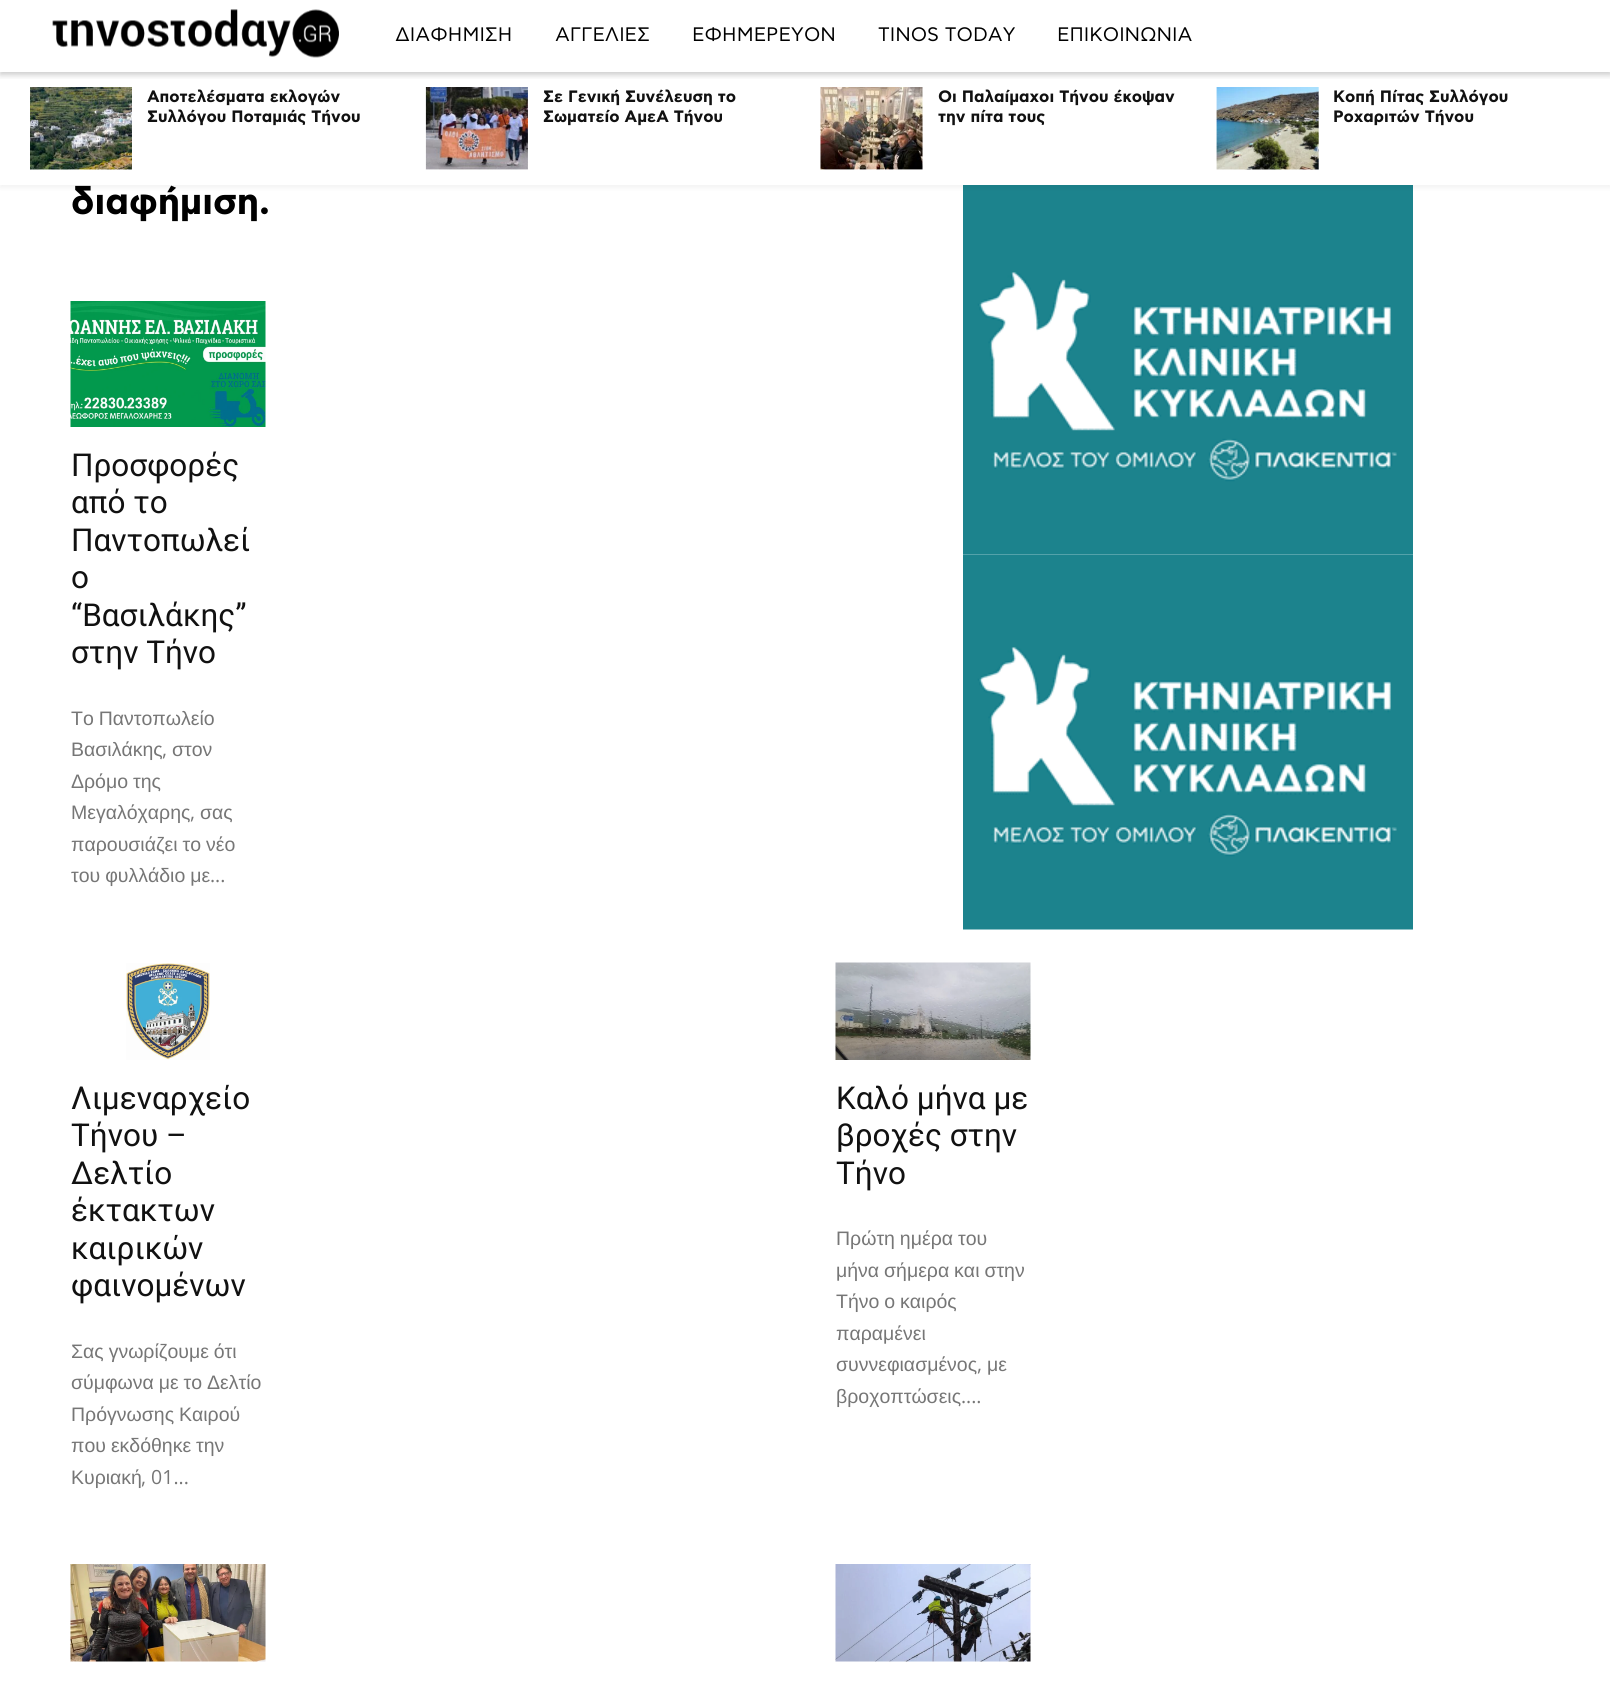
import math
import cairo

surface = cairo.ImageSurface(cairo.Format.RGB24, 1610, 1699)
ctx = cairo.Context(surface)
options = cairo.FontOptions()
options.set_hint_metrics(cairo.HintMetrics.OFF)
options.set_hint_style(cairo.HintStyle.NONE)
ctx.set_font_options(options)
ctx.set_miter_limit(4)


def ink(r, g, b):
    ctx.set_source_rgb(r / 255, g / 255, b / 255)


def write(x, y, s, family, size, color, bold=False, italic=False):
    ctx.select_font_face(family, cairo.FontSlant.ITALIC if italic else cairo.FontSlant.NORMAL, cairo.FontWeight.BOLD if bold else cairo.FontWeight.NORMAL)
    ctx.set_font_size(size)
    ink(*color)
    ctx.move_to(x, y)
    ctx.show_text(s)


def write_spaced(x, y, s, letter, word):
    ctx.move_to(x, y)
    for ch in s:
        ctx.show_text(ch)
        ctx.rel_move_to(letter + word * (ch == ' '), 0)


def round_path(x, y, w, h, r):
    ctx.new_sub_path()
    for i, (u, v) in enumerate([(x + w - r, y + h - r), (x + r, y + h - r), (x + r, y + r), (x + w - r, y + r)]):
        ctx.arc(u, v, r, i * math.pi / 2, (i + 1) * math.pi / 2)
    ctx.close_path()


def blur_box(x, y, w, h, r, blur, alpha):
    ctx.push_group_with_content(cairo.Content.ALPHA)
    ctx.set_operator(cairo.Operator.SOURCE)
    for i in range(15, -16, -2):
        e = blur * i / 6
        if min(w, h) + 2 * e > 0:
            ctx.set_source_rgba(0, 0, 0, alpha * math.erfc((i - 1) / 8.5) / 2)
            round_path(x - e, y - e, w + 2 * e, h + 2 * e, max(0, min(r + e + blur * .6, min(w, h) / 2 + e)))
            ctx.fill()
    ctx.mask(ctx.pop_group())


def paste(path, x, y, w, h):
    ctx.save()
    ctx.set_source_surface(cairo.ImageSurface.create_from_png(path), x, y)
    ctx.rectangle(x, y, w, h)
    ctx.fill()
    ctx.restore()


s1 = dict(family="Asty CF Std", size=19.5, color=(0, 0, 0))
s2 = dict(family="Asty CF Std", size=16.5, color=(17, 17, 17), bold=True)
s3 = dict(family="Asty CF Std", size=37.5, color=(0, 0, 0), bold=True)
s4 = dict(family="Roboto", size=31.5, color=(17, 17, 17))
s5 = dict(family="Liberation Sans", size=19.5, color=(118, 118, 118))
s6 = dict(family="Open Sans", size=19.5, color=(118, 118, 118))

ink(255, 255, 255)
ctx.paint()
paste("pic1.png", 52, 9, 287, 49)
ctx.save()
ctx.rectangle(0, 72, 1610, 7)
ctx.clip()
ink(0, 0, 0)
blur_box(0, 3, 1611, 72, 0, 3, 0.2)
ctx.restore()
write(395, 41, "ΔΙΑΦΗΜΙΣΗ", **s1)
write(555, 41, "ΑΓΓΕΛΙΕΣ", **s1)
write(692, 41, "ΕΦΗΜΕΡΕΥΟΝ", **s1)
write(878, 41, "TINOS TODAY", **s1)
write(1057, 41, "ΕΠΙΚΟΙΝΩΝΙΑ", **s1)
paste("pic2.png", 30, 87, 102, 83)
paste("pic3.png", 425, 87, 103, 83)
paste("pic4.png", 820, 87, 103, 83)
paste("pic5.png", 1216, 87, 103, 83)
paste("pic7.png", 963, 185, 450, 370)
ctx.save()
ctx.set_fill_rule(cairo.FillRule.EVEN_ODD)
ctx.new_path()
ctx.move_to(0, 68)
ctx.line_to(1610, 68)
ctx.line_to(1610, 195)
ctx.line_to(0, 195)
ctx.close_path()
ctx.move_to(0, 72)
ctx.line_to(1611, 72)
ctx.line_to(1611, 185)
ctx.line_to(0, 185)
ctx.close_path()
ctx.clip()
ink(0, 0, 0)
blur_box(0, 75, 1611, 113, 0, 2, 0.05)
ctx.restore()
write(147, 102, "Αποτελέσματα εκλογών", **s2)
write(147, 122, "Συλλόγου Ποταμιάς Τήνου", **s2)
write(543, 102, "Σε Γενική Συνέλευση το", **s2)
write(543, 122, "Σωματείο ΑμεΑ Τήνου", **s2)
write(938, 102, "Οι Παλαίμαχοι Τήνου έκοψαν", **s2)
write(938, 122, "την πίτα τους", **s2)
write(1333, 102, "Κοπή Πίτας Συλλόγου", **s2)
write(1333, 122, "Ροχαριτών Τήνου", **s2)
write(71, 214, "διαφήμιση.", **s3)
paste("pic6.png", 70, 301, 196, 126)
write(71, 476, "Προσφορές", **s4)
write(71, 513, "από το", **s4)
write(71, 551, "Παντοπωλεί", **s4)
write(71, 588, "ο", **s4)
write(71, 626, "“Βασιλάκης”", **s4)
write(71, 663, "στην Τήνο", **s4)
ctx.select_font_face("Liberation Sans")
ctx.set_font_size(19.5)
ink(118, 118, 118)
write_spaced(71, 725, "Το Παντοπωλείο", 0, -0.5)
write(71, 756, "Βασιλάκης", **s5)
write(162, 756, ",", **s6)
write(172, 756, "στον", **s5)
write_spaced(71, 788, "Δρόμο της", 0, -0.5)
write(71, 819, "Μεγαλόχαρης", **s5)
write(190, 819, ",", **s6)
write(200, 819, "σας", **s5)
write_spaced(71, 851, "παρουσιάζει το νέο", 0, -0.5)
write_spaced(71, 882, "του φυλλάδιο με", 0, -0.5)
write(210, 882, "...", **s6)
paste("pic8.png", 963, 554, 450, 376)
paste("pic9.png", 126, 963, 84, 97)
write(71, 1109, "Λιμεναρχείο", **s4)
write(71, 1146, "Τήνου –", **s4)
write(71, 1184, "Δελτίο", **s4)
write(71, 1221, "έκτακτων", **s4)
write(71, 1259, "καιρικών", **s4)
write(71, 1296, "φαινομένων", **s4)
ctx.select_font_face("Liberation Sans")
ctx.set_font_size(19.5)
ink(118, 118, 118)
write_spaced(71, 1358, "Σας γνωρίζουμε ότι", 0, -0.5)
write_spaced(71, 1389, "σύμφωνα με το Δελτίο", 0, -0.5)
write_spaced(71, 1421, "Πρόγνωσης Καιρού", 0, -0.5)
write_spaced(71, 1452, "που εκδόθηκε την", 0, -0.5)
write(71, 1484, "Κυριακή", **s5)
write(141, 1484, ", 01...", **s6)
paste("pic10.png", 835, 962, 196, 98)
write(836, 1109, "Καλό μήνα με", **s4)
write(836, 1146, "βροχές στην", **s4)
write(836, 1184, "Τήνο", **s4)
ctx.select_font_face("Liberation Sans")
ctx.set_font_size(19.5)
ink(118, 118, 118)
write_spaced(836, 1245, "Πρώτη ημέρα του", 0, -0.5)
write_spaced(836, 1277, "μήνα σήμερα και στην", 0, -0.5)
write_spaced(836, 1308, "Τήνο ο καιρός", 0, -0.5)
write(836, 1340, "παραμένει", **s5)
write(836, 1371, "συννεφιασμένος", **s5)
write(977, 1371, ",", **s6)
write(987, 1371, "με", **s5)
write(836, 1403, "βροχοπτώσεις", **s5)
write(961, 1403, "....", **s6)
paste("pic11.png", 70, 1564, 196, 98)
paste("pic12.png", 835, 1564, 196, 98)
surface.write_to_png("screenshot.png")
